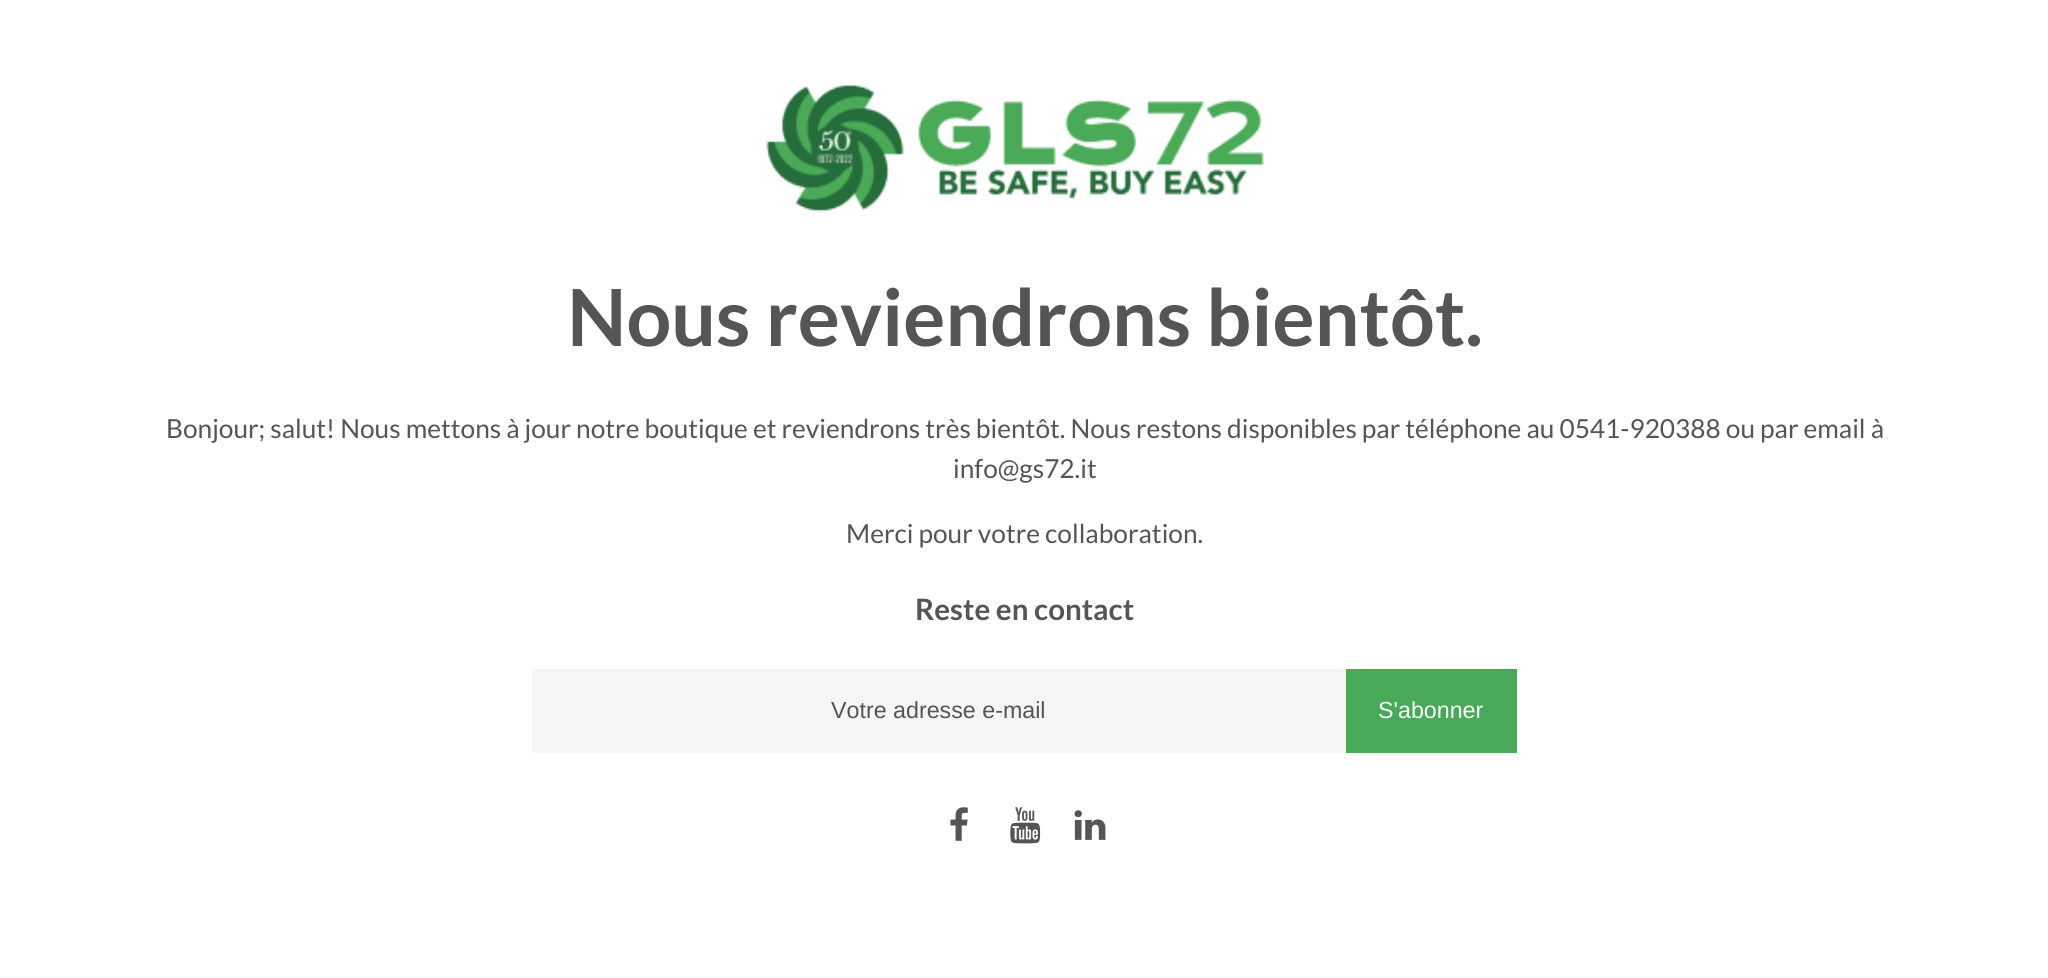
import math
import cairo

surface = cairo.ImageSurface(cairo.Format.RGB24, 2048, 978)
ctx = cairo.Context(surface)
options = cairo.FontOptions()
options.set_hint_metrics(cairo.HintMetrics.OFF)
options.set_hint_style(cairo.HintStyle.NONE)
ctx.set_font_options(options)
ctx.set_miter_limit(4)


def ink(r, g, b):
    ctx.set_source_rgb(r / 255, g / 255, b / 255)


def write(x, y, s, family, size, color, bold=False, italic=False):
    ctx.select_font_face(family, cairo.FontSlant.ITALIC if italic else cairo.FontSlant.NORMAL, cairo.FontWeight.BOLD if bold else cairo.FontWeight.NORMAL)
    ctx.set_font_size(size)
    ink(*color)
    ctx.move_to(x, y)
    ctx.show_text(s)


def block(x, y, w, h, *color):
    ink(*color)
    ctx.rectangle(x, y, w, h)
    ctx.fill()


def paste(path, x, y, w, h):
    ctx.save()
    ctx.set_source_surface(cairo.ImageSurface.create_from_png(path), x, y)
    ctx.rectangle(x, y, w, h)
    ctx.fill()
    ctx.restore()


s1 = dict(family="Lato", size=78.75, color=(85, 85, 85), bold=True)
s2 = dict(family="Lato", size=26.25, color=(85, 85, 85))
s3 = dict(family="Lato", size=29.5, color=(85, 85, 85), bold=True)
s4 = dict(family="Liberation Sans", size=23.25, color=(85, 85, 85))
s5 = dict(family="Liberation Sans", size=23.25, color=(255, 255, 255))

ink(255, 255, 255)
ctx.paint()
paste("pic1.png", 766, 84, 498, 129)
write(567, 346, "Nous reviendrons bientôt.", **s1)
write(166, 438, "Bonjour; salut! Nous mettons à jour notre boutique et reviendrons très bientôt. Nous restons disponibles par téléphone au 0541-920388 ou par email à", **s2)
write(953, 478, "info@gs72.it", **s2)
write(846, 543, "Merci pour votre collaboration.", **s2)
write(915, 620, "Reste en contact", **s3)
block(532, 669, 814, 84, 245, 245, 245)
write(831, 718, "Votre adresse e-mail", **s4)
block(1346, 669, 171, 84, 72, 170, 89)
write(1378, 718, "S'abonner", **s5)
paste("pic2.png", 950, 807, 18, 34)
paste("pic3.png", 1010, 807, 31, 37)
paste("pic4.png", 1074, 810, 32, 30)
surface.write_to_png("screenshot.png")
